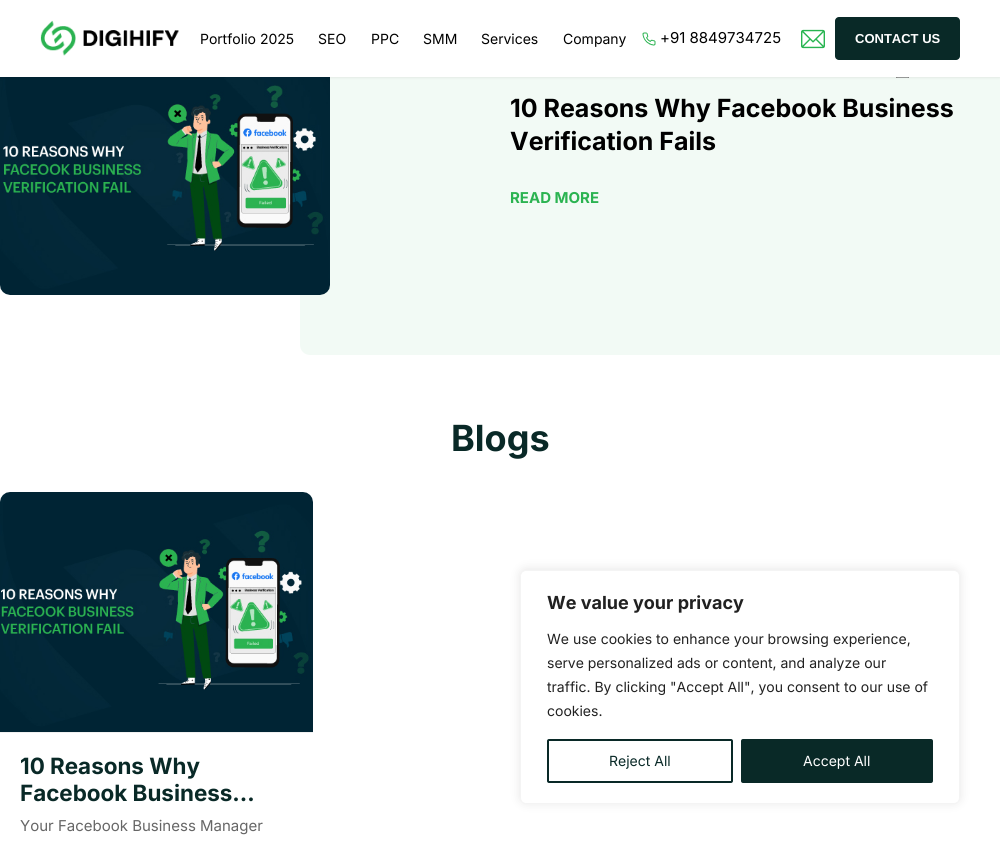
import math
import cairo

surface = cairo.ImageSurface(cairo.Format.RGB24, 1000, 844)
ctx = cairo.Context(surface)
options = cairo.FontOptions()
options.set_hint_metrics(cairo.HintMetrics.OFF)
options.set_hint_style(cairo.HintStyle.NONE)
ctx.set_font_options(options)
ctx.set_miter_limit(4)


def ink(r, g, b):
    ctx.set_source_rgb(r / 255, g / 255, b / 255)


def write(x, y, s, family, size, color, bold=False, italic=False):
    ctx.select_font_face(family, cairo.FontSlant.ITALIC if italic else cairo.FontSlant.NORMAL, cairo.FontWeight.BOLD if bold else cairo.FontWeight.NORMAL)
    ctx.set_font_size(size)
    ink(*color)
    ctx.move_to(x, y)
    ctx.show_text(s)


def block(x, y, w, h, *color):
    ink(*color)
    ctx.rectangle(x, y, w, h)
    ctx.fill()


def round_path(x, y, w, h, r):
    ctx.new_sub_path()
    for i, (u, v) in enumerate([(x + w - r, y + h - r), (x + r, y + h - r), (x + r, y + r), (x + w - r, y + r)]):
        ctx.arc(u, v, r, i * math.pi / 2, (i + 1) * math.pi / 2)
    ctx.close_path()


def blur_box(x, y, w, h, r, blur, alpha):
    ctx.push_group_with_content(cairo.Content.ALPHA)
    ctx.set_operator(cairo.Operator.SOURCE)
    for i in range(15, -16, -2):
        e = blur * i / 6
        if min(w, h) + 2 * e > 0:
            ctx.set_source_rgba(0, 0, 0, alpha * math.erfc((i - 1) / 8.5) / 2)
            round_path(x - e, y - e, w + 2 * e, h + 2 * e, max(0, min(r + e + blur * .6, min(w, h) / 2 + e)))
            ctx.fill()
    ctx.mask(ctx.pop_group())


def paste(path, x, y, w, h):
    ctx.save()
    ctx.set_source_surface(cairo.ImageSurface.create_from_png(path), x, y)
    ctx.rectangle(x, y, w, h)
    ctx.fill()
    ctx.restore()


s1 = dict(family="Inter", size=14, color=(0, 0, 0))
s2 = dict(family="Inter", size=15, color=(0, 0, 0))
s3 = dict(family="Liberation Sans", size=13, color=(255, 255, 255), bold=True)
s4 = dict(family="Inter", size=25, color=(0, 0, 0), bold=True)
s5 = dict(family="Inter", size=15, color=(43, 179, 81), bold=True)
s6 = dict(family="Inter", size=36, color=(9, 41, 39), bold=True)
s7 = dict(family="Inter", size=22.4, color=(9, 41, 39), bold=True)
s8 = dict(family="Inter", size=15, color=(102, 102, 102))
s9 = dict(family="Inter", size=18, color=(33, 33, 33), bold=True)
s10 = dict(family="Inter", size=14, color=(33, 33, 33))
s11 = dict(family="Inter", size=14, color=(9, 41, 39))
s12 = dict(family="Inter", size=14, color=(255, 255, 255))

ink(255, 255, 255)
ctx.paint()
ink(242, 250, 245)
ctx.new_path()
ctx.move_to(310, -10)
ctx.line_to(1000, -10)
ctx.line_to(1000, 355)
ctx.line_to(310, 355)
ctx.curve_to(304.5, 355, 300, 350.5, 300, 345)
ctx.line_to(300, 0)
ctx.curve_to(300, -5.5, 304.5, -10, 310, -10)
ctx.close_path()
ctx.fill()
paste("pic4.png", 0, 77, 330, 218)
paste("pic5.png", 896, 77, 13, 1)
ink(0, 0, 0)
blur_box(0, 0, 1000, 77, 0, 1.5, 0.12)
block(0, 0, 1000, 77, 255, 255, 255)
paste("pic1.png", 40, 20, 139, 36)
write(200, 44, "Portfolio 2025", **s1)
write(318, 44, "SEO", **s1)
write(371, 44, "PPC", **s1)
write(423, 44, "SMM", **s1)
write(481, 44, "Services", **s1)
write(563, 44, "Company", **s1)
paste("pic2.png", 642, 32, 14, 14)
write(660, 43, "+91 8849734725", **s2)
paste("pic3.png", 801, 29, 24, 20)
ink(9, 41, 39)
round_path(835, 17, 125, 43, 4)
ctx.fill()
write(855, 43, "CONTACT US", **s3)
write(510, 117, "10 Reasons Why Facebook Business", **s4)
write(510, 150, "Verification Fails", **s4)
write(510, 203, "READ MORE", **s5)
write(451, 451, "Blogs", **s6)
block(0, 732, 313, 1, 240, 240, 240)
paste("pic6.png", 0, 492, 313, 240)
write(20, 774, "10 Reasons Why", **s7)
write(20, 801, "Facebook Business…", **s7)
write(20, 831, "Your Facebook Business Manager", **s8)
ink(172, 171, 171)
blur_box(520, 569, 440, 234, 6, 5, 0.3)
ink(255, 255, 255)
round_path(520.5, 570.5, 439, 233, 5.5)
ctx.fill_preserve()
ink(244, 244, 244)
ctx.set_line_width(1)
ctx.stroke()
write(547, 609, "We value your privacy", **s9)
write(547, 644, "We use cookies to enhance your browsing experience,", **s10)
write(547, 668, "serve personalized ads or content, and analyze our", **s10)
write(547, 692, "traffic. By clicking \"Accept All\", you consent to our use of", **s10)
write(547, 716, "cookies.", **s10)
round_path(548, 740, 184, 42, 1)
ink(9, 41, 39)
ctx.set_line_width(2)
ctx.stroke()
write(609, 766, "Reject All", **s11)
round_path(742, 740, 190, 42, 1)
ctx.fill_preserve()
ctx.stroke()
write(803, 766, "Accept All", **s12)
surface.write_to_png("screenshot.png")
